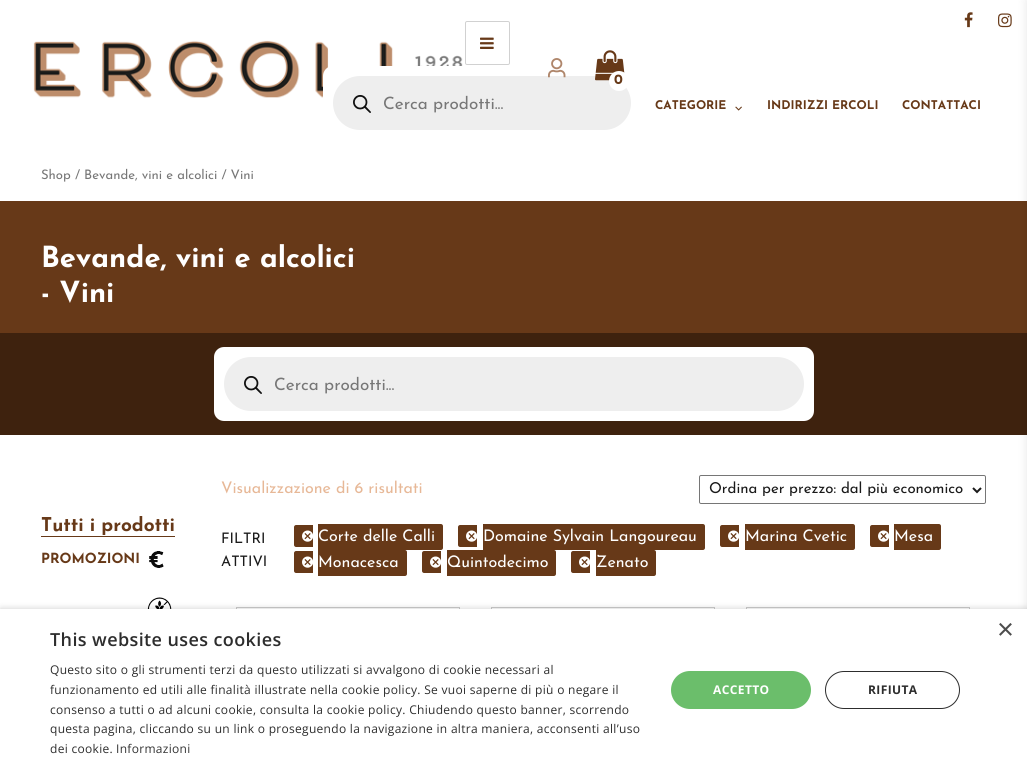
import math
import cairo

surface = cairo.ImageSurface(cairo.Format.RGB24, 1027, 771)
ctx = cairo.Context(surface)
options = cairo.FontOptions()
options.set_hint_metrics(cairo.HintMetrics.OFF)
options.set_hint_style(cairo.HintStyle.NONE)
ctx.set_font_options(options)
ctx.set_miter_limit(4)


def ink(r, g, b):
    ctx.set_source_rgb(r / 255, g / 255, b / 255)


def write(x, y, s, family, size, color, bold=False, italic=False):
    ctx.select_font_face(family, cairo.FontSlant.ITALIC if italic else cairo.FontSlant.NORMAL, cairo.FontWeight.BOLD if bold else cairo.FontWeight.NORMAL)
    ctx.set_font_size(size)
    ink(*color)
    ctx.move_to(x, y)
    ctx.show_text(s)


def write_spaced(x, y, s, letter, word):
    ctx.move_to(x, y)
    for ch in s:
        ctx.show_text(ch)
        ctx.rel_move_to(letter + word * (ch == ' '), 0)


def block(x, y, w, h, *color):
    ink(*color)
    ctx.rectangle(x, y, w, h)
    ctx.fill()


def round_path(x, y, w, h, r):
    ctx.new_sub_path()
    for i, (u, v) in enumerate([(x + w - r, y + h - r), (x + r, y + h - r), (x + r, y + r), (x + w - r, y + r)]):
        ctx.arc(u, v, r, i * math.pi / 2, (i + 1) * math.pi / 2)
    ctx.close_path()


def blur_box(x, y, w, h, r, blur, alpha):
    ctx.push_group_with_content(cairo.Content.ALPHA)
    ctx.set_operator(cairo.Operator.SOURCE)
    for i in range(15, -16, -2):
        e = blur * i / 6
        if min(w, h) + 2 * e > 0:
            ctx.set_source_rgba(0, 0, 0, alpha * math.erfc((i - 1) / 8.5) / 2)
            round_path(x - e, y - e, w + 2 * e, h + 2 * e, max(0, min(r + e + blur * .6, min(w, h) / 2 + e)))
            ctx.fill()
    ctx.mask(ctx.pop_group())


def paste(path, x, y, w, h):
    ctx.save()
    ctx.set_source_surface(cairo.ImageSurface.create_from_png(path), x, y)
    ctx.rectangle(x, y, w, h)
    ctx.fill()
    ctx.restore()


s1 = dict(family="Josefin Sans", size=14, color=(103, 57, 24), bold=True)
s2 = dict(family="Josefin Sans", size=17, color=(119, 119, 119))
s3 = dict(family="Josefin Sans", size=12, color=(103, 57, 24), bold=True)
s4 = dict(family="Josefin Sans", size=13.1, color=(119, 119, 119))
s5 = dict(family="Josefin Sans", size=29, color=(255, 255, 255), bold=True)
s6 = dict(family="Josefin Sans", size=19, color=(103, 57, 24), bold=True)
s7 = dict(family="Josefin Sans", size=16, color=(231, 184, 151))
s8 = dict(family="Josefin Sans", size=15, color=(26, 26, 26))
s9 = dict(family="Josefin Sans", size=14.5, color=(26, 26, 26))
s10 = dict(family="Josefin Sans", size=16, color=(255, 255, 255))
s11 = dict(family="Liberation Sans", size=29, color=(77, 77, 77))

ink(255, 255, 255)
ctx.paint()
paste("pic1.png", 33, 40, 430, 58)
round_path(465.5, 21.5, 44, 43, 1.5)
ink(209, 209, 209)
ctx.set_line_width(1)
ctx.stroke()
paste("pic2.png", 480, 37, 14, 12)
ink(255, 255, 255)
round_path(323, 66, 318, 74, 10)
ctx.fill()
ink(238, 238, 238)
round_path(333, 76, 298, 54, 27)
ctx.fill()
paste("pic3.png", 548, 58, 18, 20)
paste("pic4.png", 595, 50, 30, 31)
ink(255, 255, 255)
ctx.arc(619, 81, 10, 0, 2 * math.pi)
ctx.fill()
write(614, 84, "0", **s1)
paste("pic6.png", 998, 13, 14, 15)
block(0, 201, 1027, 132, 103, 57, 24)
block(0, 333, 1027, 102, 62, 34, 14)
ink(0, 0, 0)
blur_box(1027, 0, 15, 771, 0, 5, 0.1)
paste("pic5.png", 964, 12, 9, 16)
paste("pic7.png", 353, 95, 18, 18)
write(383, 109, "Cerca prodotti...", **s2)
write(655, 109, "CATEGORIE", **s3)
paste("pic8.png", 735, 106, 7, 5)
write(767, 109, "INDIRIZZI ERCOLI", **s3)
write(902, 109, "CONTATTACI", **s3)
write(41, 179, "Shop / Bevande, vini e alcolici / Vini", **s4)
write(41, 267, "Bevande, vini e alcolici", **s5)
write(41, 302, "- Vini", **s5)
round_path(214, 347, 600, 74, 10)
ctx.fill()
ink(238, 238, 238)
round_path(224, 357, 580, 54, 27)
ctx.fill()
paste("pic7.png", 244, 376, 18, 18)
write(274, 390, "Cerca prodotti...", **s2)
write(41, 531, "Tutti i prodotti", **s6)
block(41, 536, 134, 1, 103, 57, 24)
write(41, 563, "PROMOZIONI", **s1)
paste("pic9.png", 149, 551, 15, 17)
paste("pic10.png", 147, 597, 25, 12)
write(221, 493, "Visualizzazione di 6 risultati", **s7)
round_path(699.5, 475.5, 286, 28, 1.5)
ink(118, 118, 118)
ctx.stroke()
ctx.new_path()
ctx.move_to(973, 488)
ctx.line_to(977, 492)
ctx.line_to(981, 488)
ink(26, 26, 26)
ctx.set_line_width(2)
ctx.stroke()
write(709, 493, "Ordina per prezzo: dal più economico", **s8)
write(221, 543, "FILTRI", **s9)
write(221, 566, "ATTIVI", **s9)
ink(103, 57, 24)
ctx.new_path()
ctx.move_to(296, 525)
ctx.line_to(313, 525)
ctx.line_to(313, 547)
ctx.line_to(296, 547)
ctx.curve_to(295, 547, 294, 546, 294, 545)
ctx.line_to(294, 527)
ctx.curve_to(294, 526, 295, 525, 296, 525)
ctx.close_path()
ctx.fill()
paste("pic11.png", 302, 530, 11, 12)
ctx.new_path()
ctx.move_to(318, 524)
ctx.line_to(441, 524)
ctx.curve_to(442, 524, 443, 525, 443, 526)
ctx.line_to(443, 548)
ctx.curve_to(443, 549, 442, 550, 441, 550)
ctx.line_to(318, 550)
ctx.close_path()
ctx.fill()
write(318, 541, "Corte delle Calli", **s10)
ink(103, 57, 24)
ctx.new_path()
ctx.move_to(460, 525)
ctx.line_to(477, 525)
ctx.line_to(477, 547)
ctx.line_to(460, 547)
ctx.curve_to(459, 547, 458, 546, 458, 545)
ctx.line_to(458, 527)
ctx.curve_to(458, 526, 459, 525, 460, 525)
ctx.close_path()
ctx.fill()
paste("pic11.png", 466, 530, 11, 12)
ctx.new_path()
ctx.move_to(483, 524)
ctx.line_to(703, 524)
ctx.curve_to(704, 524, 705, 525, 705, 526)
ctx.line_to(705, 548)
ctx.curve_to(705, 549, 704, 550, 703, 550)
ctx.line_to(483, 550)
ctx.close_path()
ctx.fill()
write(483, 541, "Domaine Sylvain Langoureau", **s10)
ink(103, 57, 24)
ctx.new_path()
ctx.move_to(722, 525)
ctx.line_to(739, 525)
ctx.line_to(739, 547)
ctx.line_to(722, 547)
ctx.curve_to(721, 547, 720, 546, 720, 545)
ctx.line_to(720, 527)
ctx.curve_to(720, 526, 721, 525, 722, 525)
ctx.close_path()
ctx.fill()
paste("pic11.png", 728, 530, 11, 12)
ctx.new_path()
ctx.move_to(745, 524)
ctx.line_to(853, 524)
ctx.curve_to(854, 524, 855, 525, 855, 526)
ctx.line_to(855, 548)
ctx.curve_to(855, 549, 854, 550, 853, 550)
ctx.line_to(745, 550)
ctx.close_path()
ctx.fill()
write(745, 541, "Marina Cvetic", **s10)
ink(103, 57, 24)
ctx.new_path()
ctx.move_to(872, 525)
ctx.line_to(889, 525)
ctx.line_to(889, 547)
ctx.line_to(872, 547)
ctx.curve_to(871, 547, 870, 546, 870, 545)
ctx.line_to(870, 527)
ctx.curve_to(870, 526, 871, 525, 872, 525)
ctx.close_path()
ctx.fill()
paste("pic11.png", 878, 530, 11, 12)
ctx.new_path()
ctx.move_to(894, 524)
ctx.line_to(939, 524)
ctx.curve_to(940, 524, 941, 525, 941, 526)
ctx.line_to(941, 548)
ctx.curve_to(941, 549, 940, 550, 939, 550)
ctx.line_to(894, 550)
ctx.close_path()
ctx.fill()
write(894, 541, "Mesa", **s10)
ink(103, 57, 24)
ctx.new_path()
ctx.move_to(296, 551)
ctx.line_to(313, 551)
ctx.line_to(313, 573)
ctx.line_to(296, 573)
ctx.curve_to(295, 573, 294, 572, 294, 571)
ctx.line_to(294, 553)
ctx.curve_to(294, 552, 295, 551, 296, 551)
ctx.close_path()
ctx.fill()
paste("pic11.png", 302, 556, 11, 12)
ctx.new_path()
ctx.move_to(318, 550)
ctx.line_to(405, 550)
ctx.curve_to(406, 550, 407, 551, 407, 552)
ctx.line_to(407, 574)
ctx.curve_to(407, 575, 406, 576, 405, 576)
ctx.line_to(318, 576)
ctx.close_path()
ctx.fill()
write(318, 567, "Monacesca", **s10)
ink(103, 57, 24)
ctx.new_path()
ctx.move_to(424, 551)
ctx.line_to(441, 551)
ctx.line_to(441, 573)
ctx.line_to(424, 573)
ctx.curve_to(423, 573, 422, 572, 422, 571)
ctx.line_to(422, 553)
ctx.curve_to(422, 552, 423, 551, 424, 551)
ctx.close_path()
ctx.fill()
paste("pic11.png", 430, 556, 11, 12)
ctx.new_path()
ctx.move_to(447, 550)
ctx.line_to(554, 550)
ctx.curve_to(555, 550, 556, 551, 556, 552)
ctx.line_to(556, 574)
ctx.curve_to(556, 575, 555, 576, 554, 576)
ctx.line_to(447, 576)
ctx.close_path()
ctx.fill()
write(447, 567, "Quintodecimo", **s10)
ink(103, 57, 24)
ctx.new_path()
ctx.move_to(573, 551)
ctx.line_to(590, 551)
ctx.line_to(590, 573)
ctx.line_to(573, 573)
ctx.curve_to(572, 573, 571, 572, 571, 571)
ctx.line_to(571, 553)
ctx.curve_to(571, 552, 572, 551, 573, 551)
ctx.close_path()
ctx.fill()
paste("pic11.png", 579, 556, 11, 12)
ctx.new_path()
ctx.move_to(596, 550)
ctx.line_to(654, 550)
ctx.curve_to(655, 550, 656, 551, 656, 552)
ctx.line_to(656, 574)
ctx.curve_to(656, 575, 655, 576, 654, 576)
ctx.line_to(596, 576)
ctx.close_path()
ctx.fill()
write(596, 567, "Zenato", **s10)
ctx.rectangle(236.5, 607.5, 223, 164)
ink(204, 204, 204)
ctx.set_line_width(1)
ctx.stroke()
ctx.rectangle(491.5, 607.5, 223, 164)
ctx.stroke()
ctx.rectangle(746.5, 607.5, 223, 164)
ctx.stroke()
ink(0, 0, 0)
blur_box(1, 611, 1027, 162, 0, 4, 0.35)
block(0, 609, 1027, 162, 255, 255, 255)
write(997, 639, "×", **s11)
ctx.select_font_face("Open Sans SemiBold")
ctx.set_font_size(18)
ink(45, 45, 45)
write_spaced(50, 646, "This website uses cookies", 0.4, 0)
ctx.select_font_face("Open Sans")
ctx.set_font_size(12)
write_spaced(50, 674, "Questo sito o gli strumenti terzi da questo utilizzati si avvalgono di cookie necessari al", 0.3, 0)
write_spaced(50, 694, "funzionamento ed utili alle finalità illustrate nella cookie policy. Se vuoi saperne di più o negare il", 0.3, 0)
write_spaced(50, 714, "consenso a tutti o ad alcuni cookie, consulta la cookie policy. Chiudendo questo banner, scorrendo", 0.3, 0)
write_spaced(50, 733, "questa pagina, cliccando su un link o proseguendo la navigazione in altra maniera, acconsenti all’uso", 0.3, 0)
write_spaced(50, 753, "dei cookie.", 0.3, 0)
ink(51, 51, 51)
write_spaced(116, 753, "Informazioni", 0.3, 0)
ink(107, 190, 107)
round_path(671, 671, 140, 38, 19)
ctx.fill()
ctx.select_font_face("Open Sans", cairo.FontSlant.NORMAL, cairo.FontWeight.BOLD)
ink(255, 255, 255)
write_spaced(713, 694, "ACCETTO", 0.4, 0)
round_path(825.5, 671.5, 134, 37, 18.5)
ink(45, 45, 45)
ctx.stroke()
write_spaced(868, 694, "RIFIUTA", 0.4, 0)
surface.write_to_png("screenshot.png")
